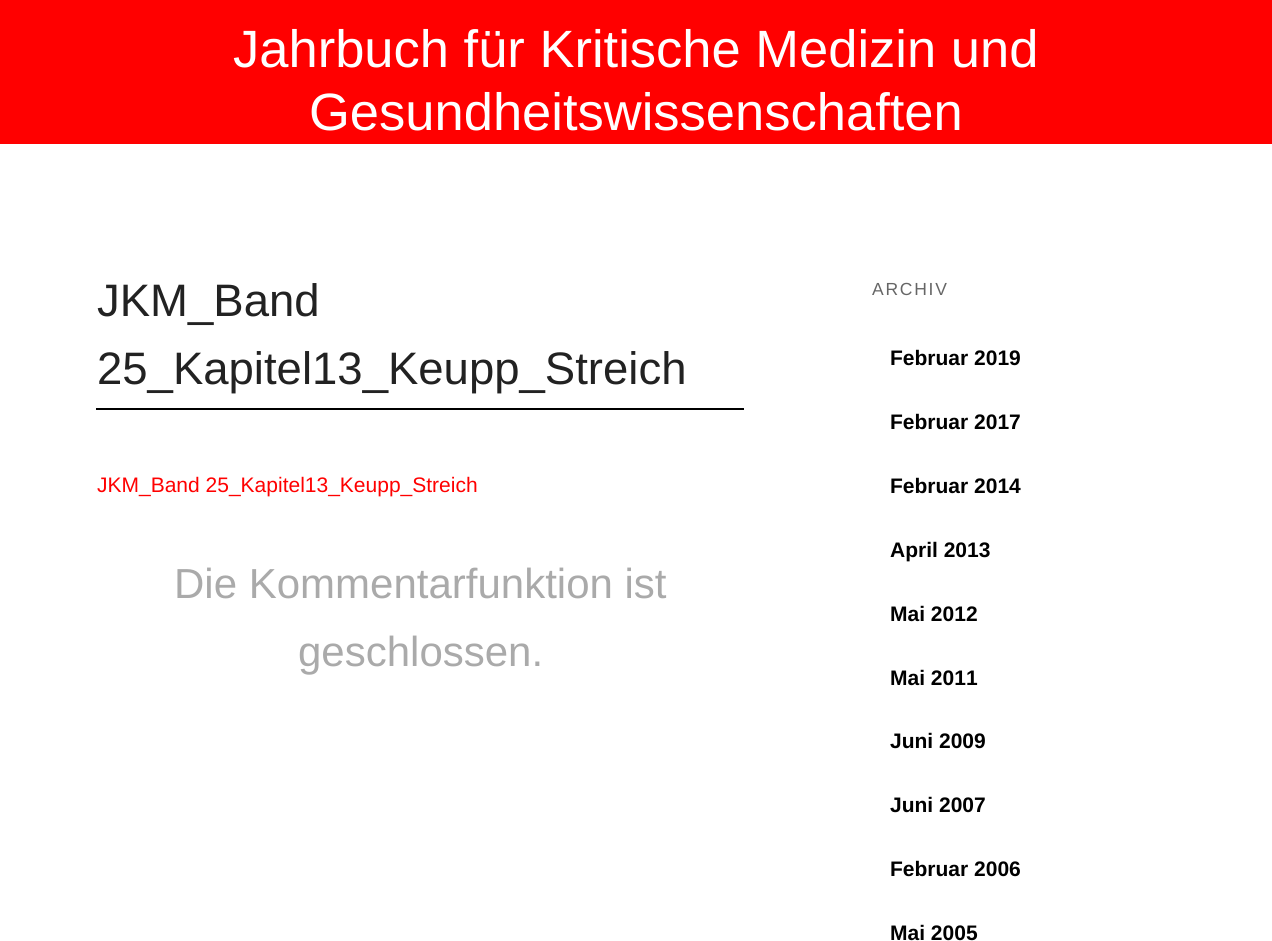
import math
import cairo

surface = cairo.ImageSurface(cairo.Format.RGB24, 1272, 941)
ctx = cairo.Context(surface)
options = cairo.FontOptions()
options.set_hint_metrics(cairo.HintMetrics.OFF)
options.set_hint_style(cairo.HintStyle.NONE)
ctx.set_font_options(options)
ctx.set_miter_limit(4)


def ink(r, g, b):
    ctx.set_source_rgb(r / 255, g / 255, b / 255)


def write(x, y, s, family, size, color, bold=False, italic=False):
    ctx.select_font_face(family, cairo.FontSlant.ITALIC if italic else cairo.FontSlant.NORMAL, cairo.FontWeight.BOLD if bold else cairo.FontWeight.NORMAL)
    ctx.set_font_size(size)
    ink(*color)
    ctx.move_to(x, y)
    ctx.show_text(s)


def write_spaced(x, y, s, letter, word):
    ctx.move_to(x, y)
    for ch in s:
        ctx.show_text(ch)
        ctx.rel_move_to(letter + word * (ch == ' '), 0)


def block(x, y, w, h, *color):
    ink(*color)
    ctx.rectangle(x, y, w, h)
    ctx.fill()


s1 = dict(family="Liberation Sans", size=52.5, color=(255, 255, 255))
s2 = dict(family="Liberation Sans", size=45.5, color=(34, 34, 34))
s3 = dict(family="Liberation Sans", size=21, color=(255, 0, 0))
s4 = dict(family="Liberation Sans", size=42, color=(170, 170, 170))
s5 = dict(family="Liberation Sans", size=21, color=(0, 0, 0), bold=True)

ink(255, 255, 255)
ctx.paint()
block(0, 0, 1272, 144, 255, 0, 0)
write(233, 67, "Jahrbuch für Kritische Medizin und", **s1)
write(309, 130, "Gesundheitswissenschaften", **s1)
block(96, 408, 648, 2, 0, 0, 0)
write(97, 316, "JKM_Band", **s2)
write(97, 384, "25_Kapitel13_Keupp_Streich", **s2)
write(97, 492, "JKM_Band 25_Kapitel13_Keupp_Streich", **s3)
write(174, 598, "Die Kommentarfunktion ist", **s4)
write(298, 666, "geschlossen.", **s4)
ctx.set_font_size(17.5)
ink(102, 102, 102)
write_spaced(872, 295, "ARCHIV", 1.75, 0)
write(890, 365, "Februar 2019", **s5)
write(890, 429, "Februar 2017", **s5)
write(890, 493, "Februar 2014", **s5)
write(890, 557, "April 2013", **s5)
write(890, 621, "Mai 2012", **s5)
write(890, 685, "Mai 2011", **s5)
write(890, 748, "Juni 2009", **s5)
write(890, 812, "Juni 2007", **s5)
write(890, 876, "Februar 2006", **s5)
write(890, 940, "Mai 2005", **s5)
surface.write_to_png("screenshot.png")
